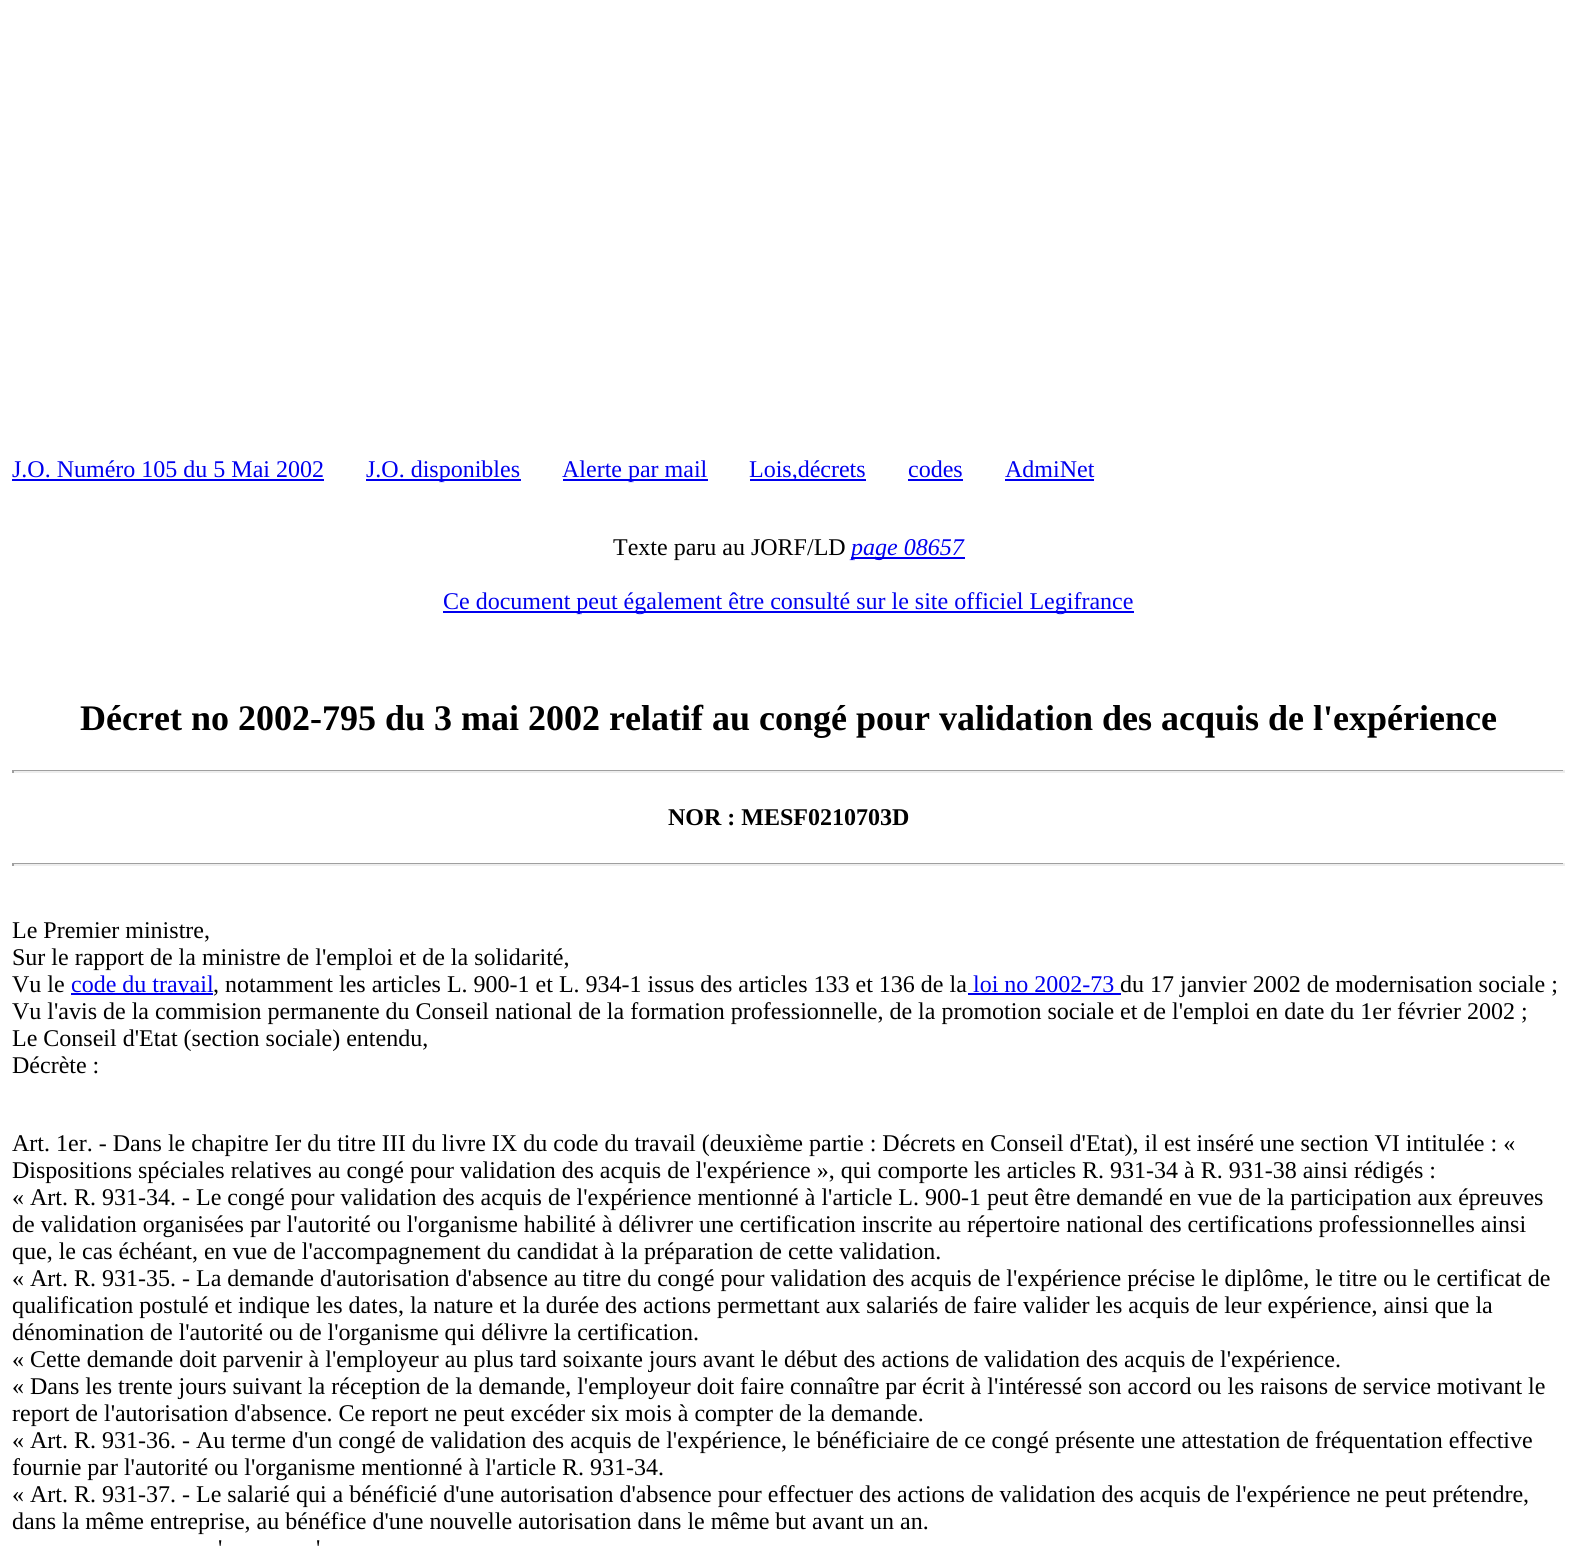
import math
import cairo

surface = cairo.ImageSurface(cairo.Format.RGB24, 1576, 1546)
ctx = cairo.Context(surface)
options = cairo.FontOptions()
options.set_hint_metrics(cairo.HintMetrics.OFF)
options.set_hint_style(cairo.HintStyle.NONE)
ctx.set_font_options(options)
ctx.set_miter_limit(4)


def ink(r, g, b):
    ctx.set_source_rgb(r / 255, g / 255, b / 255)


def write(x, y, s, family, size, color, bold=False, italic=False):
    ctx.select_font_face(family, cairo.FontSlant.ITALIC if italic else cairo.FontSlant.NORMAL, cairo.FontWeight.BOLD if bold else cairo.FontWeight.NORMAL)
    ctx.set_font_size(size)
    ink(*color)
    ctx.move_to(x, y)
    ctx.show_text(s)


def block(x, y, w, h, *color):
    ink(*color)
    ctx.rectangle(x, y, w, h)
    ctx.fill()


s1 = dict(family="Liberation Serif", size=24, color=(0, 0, 238))
s2 = dict(family="Liberation Serif", size=24, color=(0, 0, 0))
s3 = dict(family="Liberation Serif", size=24, color=(0, 0, 238), italic=True)
s4 = dict(family="Liberation Serif", size=36, color=(0, 0, 0), bold=True)
s5 = dict(family="Liberation Serif", size=24, color=(0, 0, 0), bold=True)

ink(255, 255, 255)
ctx.paint()
write(12, 477, "J.O. Numéro 105 du 5 Mai 2002", **s1)
block(12, 479, 312, 2, 0, 0, 238)
block(366, 479, 155, 2, 0, 0, 238)
write(366, 477, "J.O. disponibles", **s1)
block(563, 479, 145, 2, 0, 0, 238)
write(562, 477, "Alerte par mail", **s1)
block(750, 479, 116, 2, 0, 0, 238)
write(749, 477, "Lois,décrets", **s1)
write(908, 477, "codes", **s1)
block(908, 479, 55, 2, 0, 0, 238)
write(1005, 477, "AdmiNet", **s1)
block(1005, 479, 89, 2, 0, 0, 238)
write(613, 555, "Texte paru au JORF/LD", **s2)
block(851, 557, 114, 2, 0, 0, 238)
write(851, 555, "page 08657", **s3)
block(443, 611, 691, 2, 0, 0, 238)
write(443, 609, "Ce document peut également être consulté sur le site officiel Legifrance", **s1)
write(80, 730, "Décret no 2002-795 du 3 mai 2002 relatif au congé pour validation des acquis de l'expérience", **s4)
block(12, 770, 1553, 1, 159, 159, 159)
block(1563, 770, 2, 3, 238, 238, 238)
block(12, 771, 1553, 2, 238, 238, 238)
block(12, 770, 2, 3, 159, 159, 159)
write(668, 825, "NOR : MESF0210703D", **s5)
block(12, 863, 1553, 1, 159, 159, 159)
block(1563, 863, 2, 3, 238, 238, 238)
block(12, 864, 1553, 2, 238, 238, 238)
block(12, 863, 2, 3, 159, 159, 159)
write(12, 938, "Le Premier ministre,", **s2)
write(12, 965, "Sur le rapport de la ministre de l'emploi et de la solidarité,", **s2)
write(12, 992, "Vu le", **s2)
write(71, 992, "code du travail", **s1)
block(71, 993, 142, 2, 0, 0, 238)
write(213, 992, ", notamment les articles L. 900-1 et L. 934-1 issus des articles 133 et 136 de la", **s2)
write(973, 992, "loi no 2002-73", **s1)
block(968, 993, 153, 2, 0, 0, 238)
write(1120, 992, "du 17 janvier 2002 de modernisation sociale ;", **s2)
write(12, 1019, "Vu l'avis de la commision permanente du Conseil national de la formation professionnelle, de la promotion sociale et de l'emploi en date du 1er février 2002 ;", **s2)
write(12, 1046, "Le Conseil d'Etat (section sociale) entendu,", **s2)
write(12, 1073, "Décrète :", **s2)
write(12, 1151, "Art. 1er. - Dans le chapitre Ier du titre III du livre IX du code du travail (deuxième partie : Décrets en Conseil d'Etat), il est inséré une section VI intitulée : «", **s2)
write(12, 1178, "Dispositions spéciales relatives au congé pour validation des acquis de l'expérience », qui comporte les articles R. 931-34 à R. 931-38 ainsi rédigés :", **s2)
write(12, 1205, "« Art. R. 931-34. - Le congé pour validation des acquis de l'expérience mentionné à l'article L. 900-1 peut être demandé en vue de la participation aux épreuves", **s2)
write(12, 1232, "de validation organisées par l'autorité ou l'organisme habilité à délivrer une certification inscrite au répertoire national des certifications professionnelles ainsi", **s2)
write(12, 1259, "que, le cas échéant, en vue de l'accompagnement du candidat à la préparation de cette validation.", **s2)
write(12, 1286, "« Art. R. 931-35. - La demande d'autorisation d'absence au titre du congé pour validation des acquis de l'expérience précise le diplôme, le titre ou le certificat de", **s2)
write(12, 1313, "qualification postulé et indique les dates, la nature et la durée des actions permettant aux salariés de faire valider les acquis de leur expérience, ainsi que la", **s2)
write(12, 1340, "dénomination de l'autorité ou de l'organisme qui délivre la certification.", **s2)
write(12, 1367, "« Cette demande doit parvenir à l'employeur au plus tard soixante jours avant le début des actions de validation des acquis de l'expérience.", **s2)
write(12, 1394, "« Dans les trente jours suivant la réception de la demande, l'employeur doit faire connaître par écrit à l'intéressé son accord ou les raisons de service motivant le", **s2)
write(12, 1421, "report de l'autorisation d'absence. Ce report ne peut excéder six mois à compter de la demande.", **s2)
write(12, 1448, "« Art. R. 931-36. - Au terme d'un congé de validation des acquis de l'expérience, le bénéficiaire de ce congé présente une attestation de fréquentation effective", **s2)
write(12, 1475, "fournie par l'autorité ou l'organisme mentionné à l'article R. 931-34.", **s2)
write(12, 1502, "« Art. R. 931-37. - Le salarié qui a bénéficié d'une autorisation d'absence pour effectuer des actions de validation des acquis de l'expérience ne peut prétendre,", **s2)
write(12, 1529, "dans la même entreprise, au bénéfice d'une nouvelle autorisation dans le même but avant un an.", **s2)
write(218, 1556, "'", **s2)
write(316, 1556, "'", **s2)
surface.write_to_png("screenshot.png")
